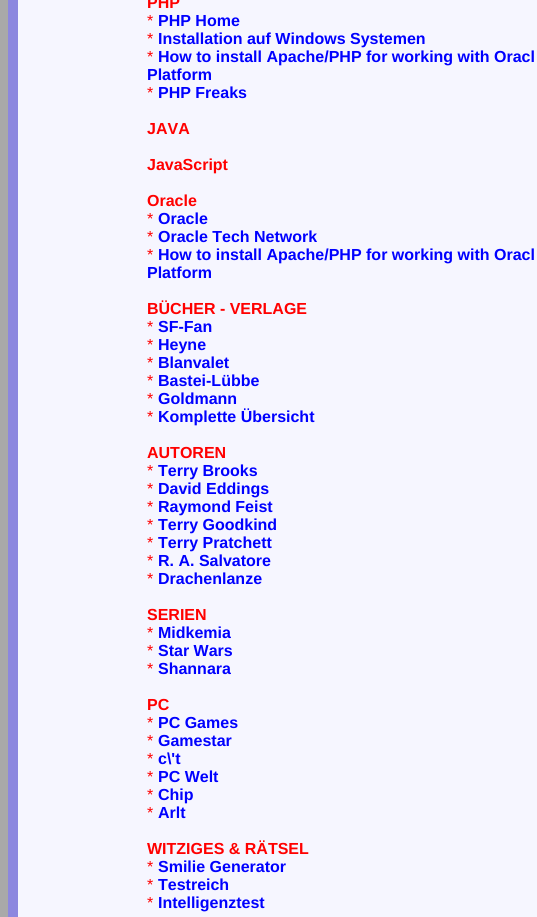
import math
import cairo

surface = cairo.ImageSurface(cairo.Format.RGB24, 537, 917)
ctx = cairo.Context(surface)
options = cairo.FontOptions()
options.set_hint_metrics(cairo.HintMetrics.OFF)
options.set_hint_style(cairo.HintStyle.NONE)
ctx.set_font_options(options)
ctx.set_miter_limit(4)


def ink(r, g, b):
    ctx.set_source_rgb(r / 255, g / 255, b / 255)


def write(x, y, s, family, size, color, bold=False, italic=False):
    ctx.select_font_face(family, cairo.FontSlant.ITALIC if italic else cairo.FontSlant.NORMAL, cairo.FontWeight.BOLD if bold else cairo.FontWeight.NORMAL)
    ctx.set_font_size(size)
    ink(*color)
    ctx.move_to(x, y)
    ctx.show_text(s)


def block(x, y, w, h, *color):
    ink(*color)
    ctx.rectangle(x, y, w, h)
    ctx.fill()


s1 = dict(family="Liberation Sans", size=16, color=(255, 0, 0), bold=True)
s2 = dict(family="Liberation Sans", size=16, color=(255, 0, 0))
s3 = dict(family="Liberation Sans", size=16, color=(0, 0, 255), bold=True)

ink(169, 169, 169)
ctx.paint()
block(8, 0, 10, 917, 140, 135, 223)
block(18, 0, 519, 917, 246, 246, 255)
write(147, 8, "PHP", **s1)
write(147, 26, "*", **s2)
write(158, 26, "PHP Home", **s3)
write(147, 44, "*", **s2)
write(158, 44, "Installation auf Windows Systemen", **s3)
write(147, 62, "*", **s2)
write(158, 62, "How to install Apache/PHP for working with Oracl", **s3)
write(147, 80, "Platform", **s3)
write(147, 98, "*", **s2)
write(158, 98, "PHP Freaks", **s3)
write(147, 134, "JAVA", **s1)
write(147, 170, "JavaScript", **s1)
write(147, 206, "Oracle", **s1)
write(147, 224, "*", **s2)
write(158, 224, "Oracle", **s3)
write(147, 242, "*", **s2)
write(158, 242, "Oracle Tech Network", **s3)
write(147, 260, "*", **s2)
write(158, 260, "How to install Apache/PHP for working with Oracl", **s3)
write(147, 278, "Platform", **s3)
write(147, 314, "BÜCHER - VERLAGE", **s1)
write(147, 332, "*", **s2)
write(158, 332, "SF-Fan", **s3)
write(147, 350, "*", **s2)
write(158, 350, "Heyne", **s3)
write(147, 368, "*", **s2)
write(158, 368, "Blanvalet", **s3)
write(147, 386, "*", **s2)
write(158, 386, "Bastei-Lübbe", **s3)
write(147, 404, "*", **s2)
write(158, 404, "Goldmann", **s3)
write(147, 422, "*", **s2)
write(158, 422, "Komplette Übersicht", **s3)
write(147, 458, "AUTOREN", **s1)
write(147, 476, "*", **s2)
write(158, 476, "Terry Brooks", **s3)
write(147, 494, "*", **s2)
write(158, 494, "David Eddings", **s3)
write(147, 512, "*", **s2)
write(158, 512, "Raymond Feist", **s3)
write(147, 530, "*", **s2)
write(158, 530, "Terry Goodkind", **s3)
write(147, 548, "*", **s2)
write(158, 548, "Terry Pratchett", **s3)
write(147, 566, "*", **s2)
write(158, 566, "R. A. Salvatore", **s3)
write(147, 584, "*", **s2)
write(158, 584, "Drachenlanze", **s3)
write(147, 620, "SERIEN", **s1)
write(147, 638, "*", **s2)
write(158, 638, "Midkemia", **s3)
write(147, 656, "*", **s2)
write(158, 656, "Star Wars", **s3)
write(147, 674, "*", **s2)
write(158, 674, "Shannara", **s3)
write(147, 710, "PC", **s1)
write(147, 728, "*", **s2)
write(158, 728, "PC Games", **s3)
write(147, 746, "*", **s2)
write(158, 746, "Gamestar", **s3)
write(147, 764, "*", **s2)
write(158, 764, "c\\'t", **s3)
write(147, 782, "*", **s2)
write(158, 782, "PC Welt", **s3)
write(147, 800, "*", **s2)
write(158, 800, "Chip", **s3)
write(147, 818, "*", **s2)
write(158, 818, "Arlt", **s3)
write(147, 854, "WITZIGES & RÄTSEL", **s1)
write(147, 872, "*", **s2)
write(158, 872, "Smilie Generator", **s3)
write(147, 890, "*", **s2)
write(158, 890, "Testreich", **s3)
write(147, 908, "*", **s2)
write(158, 908, "Intelligenztest", **s3)
surface.write_to_png("screenshot.png")
